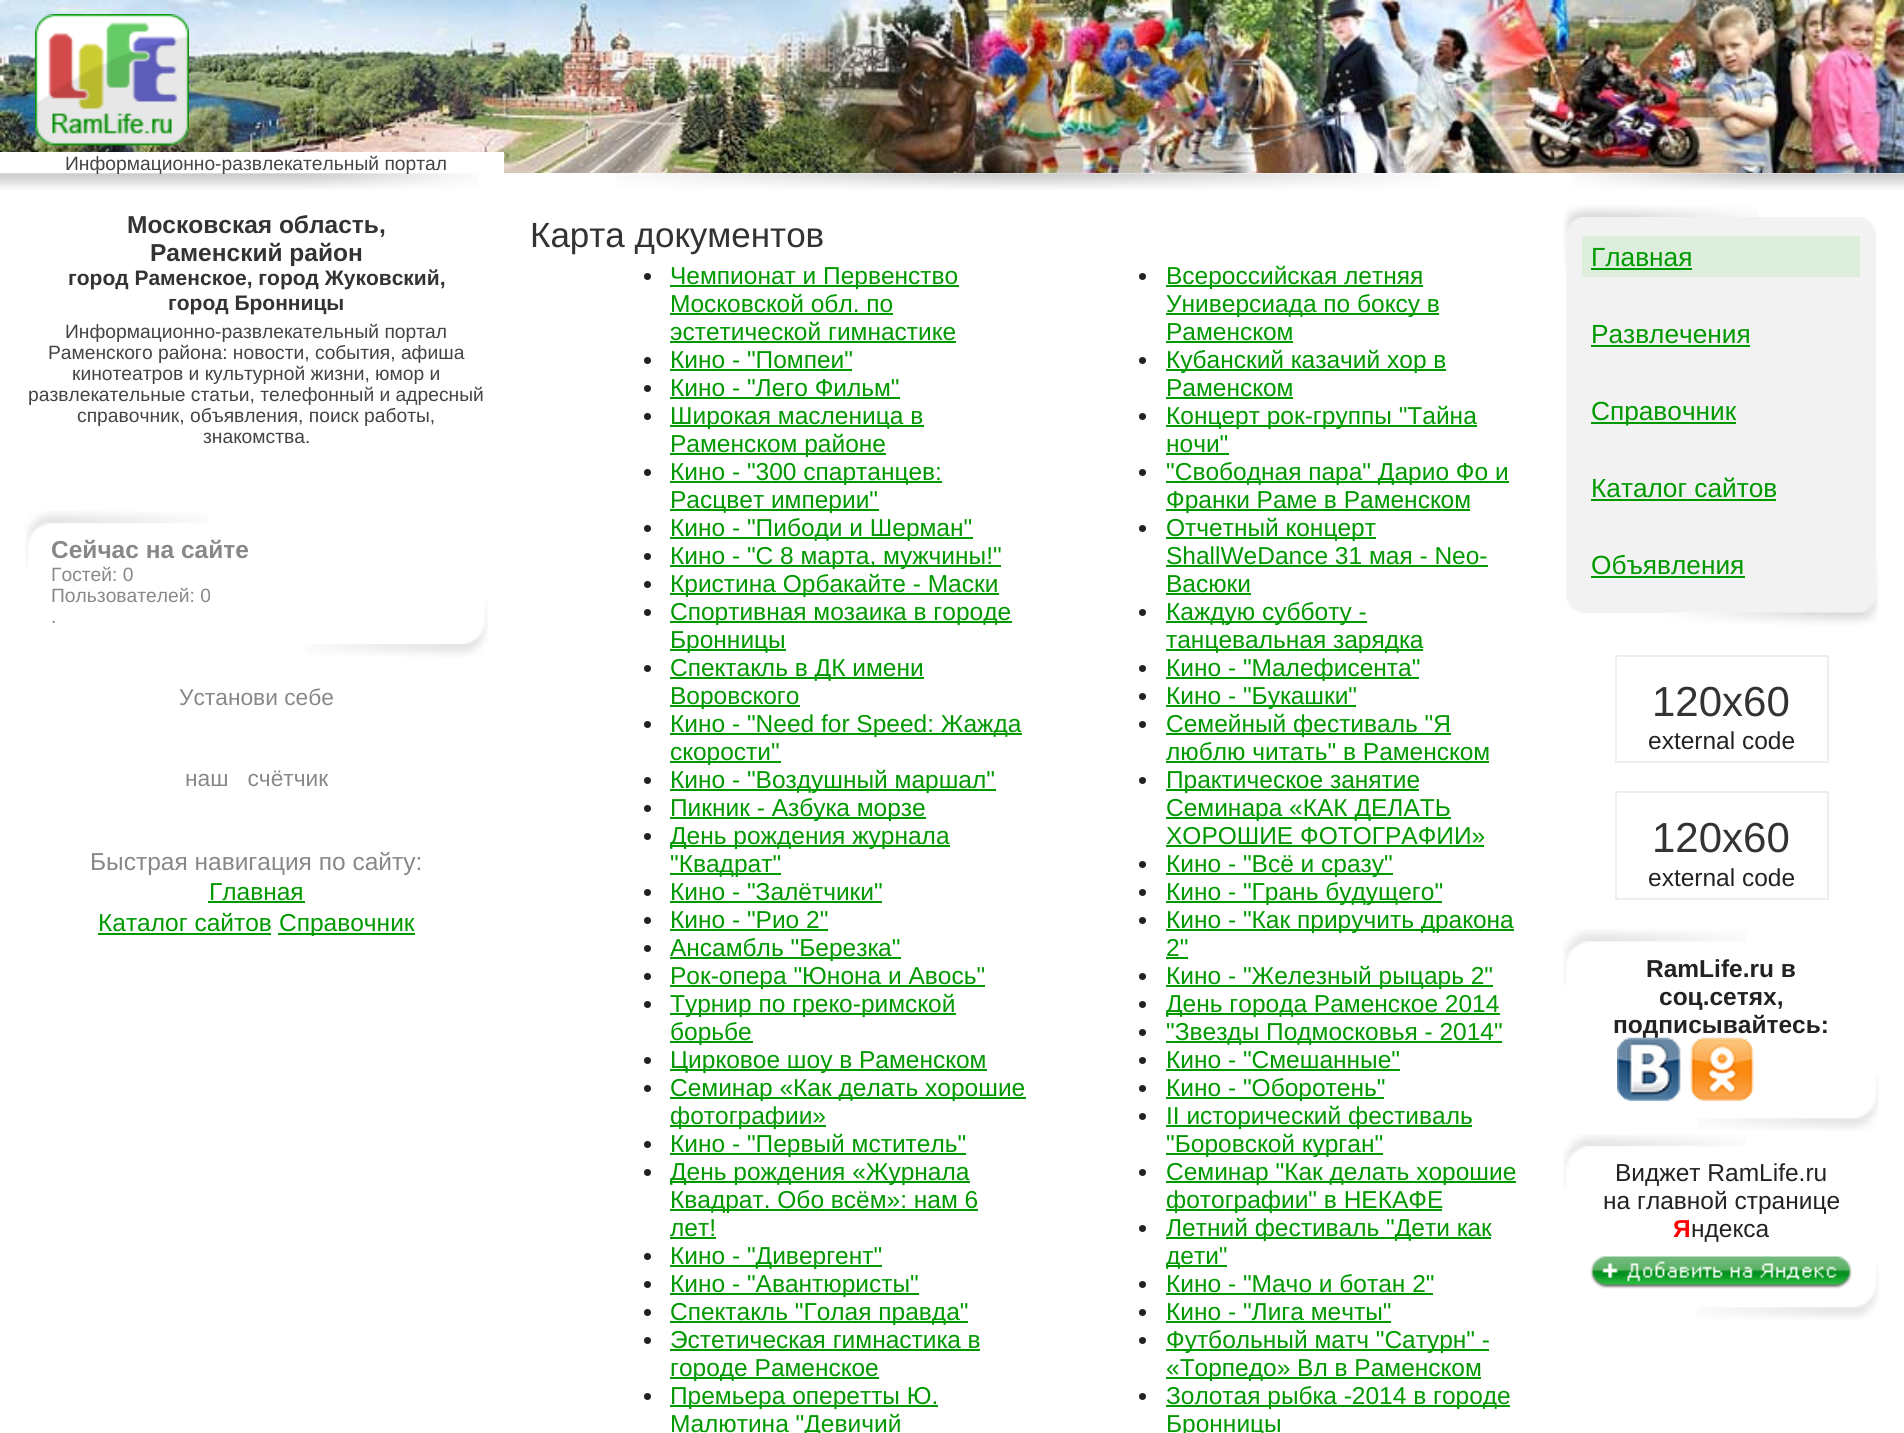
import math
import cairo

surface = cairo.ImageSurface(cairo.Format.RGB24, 1904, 1433)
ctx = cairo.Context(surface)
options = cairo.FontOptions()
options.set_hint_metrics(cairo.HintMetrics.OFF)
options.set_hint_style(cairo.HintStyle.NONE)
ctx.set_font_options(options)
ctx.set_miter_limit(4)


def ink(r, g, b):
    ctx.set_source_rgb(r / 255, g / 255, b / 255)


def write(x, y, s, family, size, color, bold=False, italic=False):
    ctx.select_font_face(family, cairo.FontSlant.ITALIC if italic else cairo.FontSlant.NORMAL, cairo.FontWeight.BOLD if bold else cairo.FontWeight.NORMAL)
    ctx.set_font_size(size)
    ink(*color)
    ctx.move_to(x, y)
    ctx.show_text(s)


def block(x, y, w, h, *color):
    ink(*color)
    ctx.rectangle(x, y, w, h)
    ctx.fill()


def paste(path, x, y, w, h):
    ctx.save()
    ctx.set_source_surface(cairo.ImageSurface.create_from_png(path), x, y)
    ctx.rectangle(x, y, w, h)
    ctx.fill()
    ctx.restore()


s1 = dict(family="Liberation Sans", size=19.25, color=(68, 68, 68))
s2 = dict(family="Liberation Sans", size=24.5, color=(51, 51, 51), bold=True)
s3 = dict(family="Liberation Sans", size=21, color=(51, 51, 51), bold=True)
s4 = dict(family="Liberation Sans", size=24.5, color=(136, 136, 136), bold=True)
s5 = dict(family="Liberation Sans", size=19.25, color=(136, 136, 136))
s6 = dict(family="Liberation Sans", size=22.75, color=(136, 136, 136))
s7 = dict(family="Liberation Sans", size=24.5, color=(136, 136, 136))
s8 = dict(family="Liberation Sans", size=24.5, color=(0, 153, 0))
s9 = dict(family="Liberation Sans", size=35, color=(51, 51, 51))
s10 = dict(family="Liberation Sans", size=26.25, color=(0, 153, 0))
s11 = dict(family="Liberation Sans", size=42, color=(51, 51, 51))
s12 = dict(family="Liberation Sans", size=24.5, color=(34, 34, 34))
s13 = dict(family="Liberation Sans", size=24.5, color=(34, 34, 34), bold=True)
s14 = dict(family="Liberation Sans", size=24.5, color=(255, 0, 0), bold=True)

ink(255, 255, 255)
ctx.paint()
paste("pic1.png", 0, 0, 1904, 173)
paste("pic2.png", 35, 14, 154, 132)
block(0, 152, 504, 21, 255, 255, 255)
paste("pic3.png", 0, 173, 479, 17)
write(65, 170, "Информационно-развлекательный портал", **s1)
paste("pic4.png", 615, 173, 826, 17)
paste("pic5.png", 1572, 173, 332, 17)
write(127, 233, "Московская область,", **s2)
write(150, 261, "Раменский район", **s2)
write(68, 285, "город Раменское, город Жуковский,", **s3)
write(168, 310, "город Бронницы", **s3)
write(65, 338, "Информационно-развлекательный портал", **s1)
write(48, 359, "Раменского района: новости, события, афиша", **s1)
write(72, 380, "кинотеатров и культурной жизни, юмор и", **s1)
write(28, 401, "развлекательные статьи, телефонный и адресный", **s1)
write(77, 422, "справочник, объявления, поиск работы,", **s1)
write(203, 443, "знакомства.", **s1)
paste("pic6.png", 29, 511, 179, 13)
paste("pic7.png", 25, 523, 24, 44)
write(51, 558, "Сейчас на сайте", **s4)
write(51, 581, "Гостей: 0", **s5)
write(51, 602, "Пользователей: 0", **s5)
write(51, 623, ".", **s5)
paste("pic8.png", 464, 600, 24, 44)
paste("pic9.png", 305, 644, 178, 13)
write(179, 705, "Установи себе", **s6)
write(185, 786, "наш   счётчик", **s6)
write(90, 870, "Быстрая навигация по сайту:", **s7)
write(209, 900, "Главная", **s8)
block(208, 901, 97, 2, 0, 153, 0)
write(98, 931, "Каталог сайтов", **s8)
block(98, 933, 173, 2, 0, 153, 0)
block(278, 933, 137, 2, 0, 153, 0)
write(279, 931, "Справочник", **s8)
write(530, 247, "Карта документов", **s9)
ink(34, 34, 34)
ctx.new_path()
ctx.arc(647.5, 276.5, 3.5, 0, 2 * math.pi)
ctx.fill()
block(670, 285, 289, 2, 0, 153, 0)
write(670, 284, "Чемпионат и Первенство", **s8)
write(670, 312, "Московской обл. по", **s8)
block(670, 313, 223, 2, 0, 153, 0)
write(670, 340, "эстетической гимнастике", **s8)
block(670, 341, 286, 2, 0, 153, 0)
ink(34, 34, 34)
ctx.new_path()
ctx.arc(647.5, 360.5, 3.5, 0, 2 * math.pi)
ctx.fill()
write(670, 368, "Кино - \"Помпеи\"", **s8)
block(670, 369, 182, 2, 0, 153, 0)
ink(34, 34, 34)
ctx.new_path()
ctx.arc(647.5, 388.5, 3.5, 0, 2 * math.pi)
ctx.fill()
write(670, 396, "Кино - \"Лего Фильм\"", **s8)
block(670, 397, 230, 2, 0, 153, 0)
ink(34, 34, 34)
ctx.new_path()
ctx.arc(647.5, 416.5, 3.5, 0, 2 * math.pi)
ctx.fill()
block(670, 425, 254, 2, 0, 153, 0)
write(670, 424, "Широкая масленица в", **s8)
block(670, 453, 216, 2, 0, 153, 0)
write(670, 452, "Раменском районе", **s8)
ink(34, 34, 34)
ctx.new_path()
ctx.arc(647.5, 472.5, 3.5, 0, 2 * math.pi)
ctx.fill()
block(670, 481, 272, 2, 0, 153, 0)
write(670, 480, "Кино - \"300 спартанцев:", **s8)
block(670, 509, 209, 2, 0, 153, 0)
write(670, 508, "Расцвет империи\"", **s8)
ink(34, 34, 34)
ctx.new_path()
ctx.arc(647.5, 528.5, 3.5, 0, 2 * math.pi)
ctx.fill()
block(670, 537, 303, 2, 0, 153, 0)
write(670, 536, "Кино - \"Пибоди и Шерман\"", **s8)
ink(34, 34, 34)
ctx.new_path()
ctx.arc(647.5, 556.5, 3.5, 0, 2 * math.pi)
ctx.fill()
block(670, 565, 331, 2, 0, 153, 0)
write(670, 564, "Кино - \"С 8 марта, мужчины!\"", **s8)
ink(34, 34, 34)
ctx.new_path()
ctx.arc(647.5, 584.5, 3.5, 0, 2 * math.pi)
ctx.fill()
block(670, 593, 329, 2, 0, 153, 0)
write(670, 592, "Кристина Орбакайте - Маски", **s8)
ink(34, 34, 34)
ctx.new_path()
ctx.arc(647.5, 612.5, 3.5, 0, 2 * math.pi)
ctx.fill()
block(670, 621, 342, 2, 0, 153, 0)
write(670, 620, "Спортивная мозаика в городе", **s8)
block(670, 649, 116, 2, 0, 153, 0)
write(670, 648, "Бронницы", **s8)
ink(34, 34, 34)
ctx.new_path()
ctx.arc(647.5, 668.5, 3.5, 0, 2 * math.pi)
ctx.fill()
block(670, 677, 254, 2, 0, 153, 0)
write(670, 676, "Спектакль в ДК имени", **s8)
block(670, 705, 130, 2, 0, 153, 0)
write(670, 704, "Воровского", **s8)
ink(34, 34, 34)
ctx.new_path()
ctx.arc(647.5, 724.5, 3.5, 0, 2 * math.pi)
ctx.fill()
block(670, 733, 352, 2, 0, 153, 0)
write(670, 732, "Кино - \"Need for Speed: Жажда", **s8)
block(670, 761, 111, 2, 0, 153, 0)
write(670, 760, "скорости\"", **s8)
ink(34, 34, 34)
ctx.new_path()
ctx.arc(647.5, 780.5, 3.5, 0, 2 * math.pi)
ctx.fill()
block(670, 789, 326, 2, 0, 153, 0)
write(670, 788, "Кино - \"Воздушный маршал\"", **s8)
ink(34, 34, 34)
ctx.new_path()
ctx.arc(647.5, 808.5, 3.5, 0, 2 * math.pi)
ctx.fill()
block(670, 817, 256, 2, 0, 153, 0)
write(670, 816, "Пикник - Азбука морзе", **s8)
ink(34, 34, 34)
ctx.new_path()
ctx.arc(647.5, 836.5, 3.5, 0, 2 * math.pi)
ctx.fill()
block(670, 845, 280, 2, 0, 153, 0)
write(670, 844, "День рождения журнала", **s8)
block(670, 873, 111, 2, 0, 153, 0)
write(670, 872, "\"Квадрат\"", **s8)
ink(34, 34, 34)
ctx.new_path()
ctx.arc(647.5, 892.5, 3.5, 0, 2 * math.pi)
ctx.fill()
write(670, 900, "Кино - \"Залётчики\"", **s8)
block(670, 901, 212, 2, 0, 153, 0)
ink(34, 34, 34)
ctx.new_path()
ctx.arc(647.5, 920.5, 3.5, 0, 2 * math.pi)
ctx.fill()
write(670, 928, "Кино - \"Рио 2\"", **s8)
block(670, 929, 158, 2, 0, 153, 0)
ink(34, 34, 34)
ctx.new_path()
ctx.arc(647.5, 948.5, 3.5, 0, 2 * math.pi)
ctx.fill()
block(670, 957, 231, 2, 0, 153, 0)
write(670, 956, "Ансамбль \"Березка\"", **s8)
ink(34, 34, 34)
ctx.new_path()
ctx.arc(647.5, 976.5, 3.5, 0, 2 * math.pi)
ctx.fill()
block(670, 985, 315, 2, 0, 153, 0)
write(670, 984, "Рок-опера \"Юнона и Авось\"", **s8)
ink(34, 34, 34)
ctx.new_path()
ctx.arc(647.5, 1004.5, 3.5, 0, 2 * math.pi)
ctx.fill()
block(670, 1013, 286, 2, 0, 153, 0)
write(670, 1012, "Турнир по греко-римской", **s8)
block(670, 1041, 83, 2, 0, 153, 0)
write(670, 1040, "борьбе", **s8)
ink(34, 34, 34)
ctx.new_path()
ctx.arc(647.5, 1060.5, 3.5, 0, 2 * math.pi)
ctx.fill()
block(670, 1069, 317, 2, 0, 153, 0)
write(670, 1068, "Цирковое шоу в Раменском", **s8)
ink(34, 34, 34)
ctx.new_path()
ctx.arc(647.5, 1088.5, 3.5, 0, 2 * math.pi)
ctx.fill()
block(670, 1097, 356, 2, 0, 153, 0)
write(670, 1096, "Семинар «Как делать хорошие", **s8)
block(670, 1125, 156, 2, 0, 153, 0)
write(670, 1124, "фотографии»", **s8)
ink(34, 34, 34)
ctx.new_path()
ctx.arc(647.5, 1144.5, 3.5, 0, 2 * math.pi)
ctx.fill()
block(670, 1153, 296, 2, 0, 153, 0)
write(670, 1152, "Кино - \"Первый мститель\"", **s8)
ink(34, 34, 34)
ctx.new_path()
ctx.arc(647.5, 1172.5, 3.5, 0, 2 * math.pi)
ctx.fill()
block(670, 1181, 300, 2, 0, 153, 0)
write(670, 1180, "День рождения «Журнала", **s8)
block(670, 1209, 308, 2, 0, 153, 0)
write(670, 1208, "Квадрат. Обо всём»: нам 6", **s8)
write(670, 1236, "лет!", **s8)
block(670, 1237, 46, 2, 0, 153, 0)
ink(34, 34, 34)
ctx.new_path()
ctx.arc(647.5, 1256.5, 3.5, 0, 2 * math.pi)
ctx.fill()
block(670, 1265, 212, 2, 0, 153, 0)
write(670, 1264, "Кино - \"Дивергент\"", **s8)
ink(34, 34, 34)
ctx.new_path()
ctx.arc(647.5, 1284.5, 3.5, 0, 2 * math.pi)
ctx.fill()
block(670, 1293, 249, 2, 0, 153, 0)
write(670, 1292, "Кино - \"Авантюристы\"", **s8)
ink(34, 34, 34)
ctx.new_path()
ctx.arc(647.5, 1312.5, 3.5, 0, 2 * math.pi)
ctx.fill()
block(670, 1321, 298, 2, 0, 153, 0)
write(670, 1320, "Спектакль \"Голая правда\"", **s8)
ink(34, 34, 34)
ctx.new_path()
ctx.arc(647.5, 1340.5, 3.5, 0, 2 * math.pi)
ctx.fill()
write(670, 1348, "Эстетическая гимнастика в", **s8)
block(670, 1349, 310, 2, 0, 153, 0)
block(670, 1377, 209, 2, 0, 153, 0)
write(670, 1376, "городе Раменское", **s8)
ink(34, 34, 34)
ctx.new_path()
ctx.arc(647.5, 1396.5, 3.5, 0, 2 * math.pi)
ctx.fill()
block(670, 1405, 268, 2, 0, 153, 0)
write(670, 1404, "Премьера оперетты Ю.", **s8)
write(670, 1432, "Малютина \"Девичий", **s8)
ink(34, 34, 34)
ctx.new_path()
ctx.arc(1142.5, 276.5, 3.5, 0, 2 * math.pi)
ctx.fill()
block(1166, 285, 257, 2, 0, 153, 0)
write(1166, 284, "Всероссийская летняя", **s8)
block(1166, 313, 273, 2, 0, 153, 0)
write(1166, 312, "Универсиада по боксу в", **s8)
write(1166, 340, "Раменском", **s8)
block(1166, 341, 127, 2, 0, 153, 0)
ink(34, 34, 34)
ctx.new_path()
ctx.arc(1142.5, 360.5, 3.5, 0, 2 * math.pi)
ctx.fill()
block(1166, 369, 280, 2, 0, 153, 0)
write(1166, 368, "Кубанский казачий хор в", **s8)
write(1166, 396, "Раменском", **s8)
block(1166, 397, 127, 2, 0, 153, 0)
ink(34, 34, 34)
ctx.new_path()
ctx.arc(1142.5, 416.5, 3.5, 0, 2 * math.pi)
ctx.fill()
block(1166, 425, 311, 2, 0, 153, 0)
write(1166, 424, "Концерт рок-группы \"Тайна", **s8)
write(1166, 452, "ночи\"", **s8)
block(1166, 453, 63, 2, 0, 153, 0)
ink(34, 34, 34)
ctx.new_path()
ctx.arc(1142.5, 472.5, 3.5, 0, 2 * math.pi)
ctx.fill()
block(1166, 481, 343, 2, 0, 153, 0)
write(1166, 480, "\"Свободная пара\" Дарио Фо и", **s8)
block(1166, 509, 304, 2, 0, 153, 0)
write(1166, 508, "Франки Раме в Раменском", **s8)
ink(34, 34, 34)
ctx.new_path()
ctx.arc(1142.5, 528.5, 3.5, 0, 2 * math.pi)
ctx.fill()
block(1166, 537, 210, 2, 0, 153, 0)
write(1166, 536, "Отчетный концерт", **s8)
write(1166, 564, "ShallWeDance 31 мая - Neo-", **s8)
block(1166, 565, 322, 2, 0, 153, 0)
write(1166, 592, "Васюки", **s8)
block(1166, 593, 85, 2, 0, 153, 0)
ink(34, 34, 34)
ctx.new_path()
ctx.arc(1142.5, 612.5, 3.5, 0, 2 * math.pi)
ctx.fill()
block(1166, 621, 201, 2, 0, 153, 0)
write(1166, 620, "Каждую субботу -", **s8)
block(1166, 649, 257, 2, 0, 153, 0)
write(1166, 648, "танцевальная зарядка", **s8)
ink(34, 34, 34)
ctx.new_path()
ctx.arc(1142.5, 668.5, 3.5, 0, 2 * math.pi)
ctx.fill()
block(1166, 677, 253, 2, 0, 153, 0)
write(1166, 676, "Кино - \"Малефисента\"", **s8)
ink(34, 34, 34)
ctx.new_path()
ctx.arc(1142.5, 696.5, 3.5, 0, 2 * math.pi)
ctx.fill()
block(1166, 705, 190, 2, 0, 153, 0)
write(1166, 704, "Кино - \"Букашки\"", **s8)
ink(34, 34, 34)
ctx.new_path()
ctx.arc(1142.5, 724.5, 3.5, 0, 2 * math.pi)
ctx.fill()
block(1166, 733, 285, 2, 0, 153, 0)
write(1166, 732, "Семейный фестиваль \"Я", **s8)
write(1166, 760, "люблю читать\" в Раменском", **s8)
block(1166, 761, 323, 2, 0, 153, 0)
ink(34, 34, 34)
ctx.new_path()
ctx.arc(1142.5, 780.5, 3.5, 0, 2 * math.pi)
ctx.fill()
block(1166, 789, 253, 2, 0, 153, 0)
write(1166, 788, "Практическое занятие", **s8)
block(1166, 817, 285, 2, 0, 153, 0)
write(1166, 816, "Семинара «КАК ДЕЛАТЬ", **s8)
write(1166, 844, "ХОРОШИЕ ФОТОГРАФИИ»", **s8)
block(1166, 845, 318, 2, 0, 153, 0)
ink(34, 34, 34)
ctx.new_path()
ctx.arc(1142.5, 864.5, 3.5, 0, 2 * math.pi)
ctx.fill()
block(1166, 873, 227, 2, 0, 153, 0)
write(1166, 872, "Кино - \"Всё и сразу\"", **s8)
ink(34, 34, 34)
ctx.new_path()
ctx.arc(1142.5, 892.5, 3.5, 0, 2 * math.pi)
ctx.fill()
block(1166, 901, 276, 2, 0, 153, 0)
write(1166, 900, "Кино - \"Грань будущего\"", **s8)
ink(34, 34, 34)
ctx.new_path()
ctx.arc(1142.5, 920.5, 3.5, 0, 2 * math.pi)
ctx.fill()
block(1166, 929, 348, 2, 0, 153, 0)
write(1166, 928, "Кино - \"Как приручить дракона", **s8)
write(1166, 956, "2\"", **s8)
block(1166, 957, 22, 2, 0, 153, 0)
ink(34, 34, 34)
ctx.new_path()
ctx.arc(1142.5, 976.5, 3.5, 0, 2 * math.pi)
ctx.fill()
block(1166, 985, 327, 2, 0, 153, 0)
write(1166, 984, "Кино - \"Железный рыцарь 2\"", **s8)
ink(34, 34, 34)
ctx.new_path()
ctx.arc(1142.5, 1004.5, 3.5, 0, 2 * math.pi)
ctx.fill()
block(1166, 1013, 334, 2, 0, 153, 0)
write(1166, 1012, "День города Раменское 2014", **s8)
ink(34, 34, 34)
ctx.new_path()
ctx.arc(1142.5, 1032.5, 3.5, 0, 2 * math.pi)
ctx.fill()
block(1166, 1041, 336, 2, 0, 153, 0)
write(1166, 1040, "\"Звезды Подмосковья - 2014\"", **s8)
ink(34, 34, 34)
ctx.new_path()
ctx.arc(1142.5, 1060.5, 3.5, 0, 2 * math.pi)
ctx.fill()
write(1166, 1068, "Кино - \"Смешанные\"", **s8)
block(1166, 1069, 234, 2, 0, 153, 0)
ink(34, 34, 34)
ctx.new_path()
ctx.arc(1142.5, 1088.5, 3.5, 0, 2 * math.pi)
ctx.fill()
block(1166, 1097, 218, 2, 0, 153, 0)
write(1166, 1096, "Кино - \"Оборотень\"", **s8)
ink(34, 34, 34)
ctx.new_path()
ctx.arc(1142.5, 1116.5, 3.5, 0, 2 * math.pi)
ctx.fill()
block(1166, 1125, 306, 2, 0, 153, 0)
write(1166, 1124, "II исторический фестиваль", **s8)
block(1166, 1153, 217, 2, 0, 153, 0)
write(1166, 1152, "\"Боровской курган\"", **s8)
ink(34, 34, 34)
ctx.new_path()
ctx.arc(1142.5, 1172.5, 3.5, 0, 2 * math.pi)
ctx.fill()
block(1166, 1181, 350, 2, 0, 153, 0)
write(1166, 1180, "Семинар \"Как делать хорошие", **s8)
block(1166, 1209, 276, 2, 0, 153, 0)
write(1166, 1208, "фотографии\" в НЕКАФЕ", **s8)
ink(34, 34, 34)
ctx.new_path()
ctx.arc(1142.5, 1228.5, 3.5, 0, 2 * math.pi)
ctx.fill()
block(1166, 1237, 325, 2, 0, 153, 0)
write(1166, 1236, "Летний фестиваль \"Дети как", **s8)
block(1166, 1265, 61, 2, 0, 153, 0)
write(1166, 1264, "дети\"", **s8)
ink(34, 34, 34)
ctx.new_path()
ctx.arc(1142.5, 1284.5, 3.5, 0, 2 * math.pi)
ctx.fill()
write(1166, 1292, "Кино - \"Мачо и ботан 2\"", **s8)
block(1166, 1293, 267, 2, 0, 153, 0)
ink(34, 34, 34)
ctx.new_path()
ctx.arc(1142.5, 1312.5, 3.5, 0, 2 * math.pi)
ctx.fill()
write(1166, 1320, "Кино - \"Лига мечты\"", **s8)
block(1166, 1321, 225, 2, 0, 153, 0)
ink(34, 34, 34)
ctx.new_path()
ctx.arc(1142.5, 1340.5, 3.5, 0, 2 * math.pi)
ctx.fill()
block(1166, 1349, 323, 2, 0, 153, 0)
write(1166, 1348, "Футбольный матч \"Сатурн\" -", **s8)
block(1166, 1377, 315, 2, 0, 153, 0)
write(1166, 1376, "«Торпедо» Вл в Раменском", **s8)
ink(34, 34, 34)
ctx.new_path()
ctx.arc(1142.5, 1396.5, 3.5, 0, 2 * math.pi)
ctx.fill()
block(1166, 1405, 344, 2, 0, 153, 0)
write(1166, 1404, "Золотая рыбка -2014 в городе", **s8)
write(1166, 1432, "Бронницы", **s8)
paste("pic10.png", 1565, 205, 193, 12)
paste("pic11.png", 1563, 217, 19, 198)
block(1582, 217, 278, 396, 242, 242, 242)
block(1582, 236, 278, 41, 221, 238, 221)
write(1591, 266, "Главная", **s10)
block(1591, 268, 101, 2, 0, 153, 0)
write(1591, 343, "Развлечения", **s10)
block(1591, 345, 159, 2, 0, 153, 0)
block(1591, 422, 145, 2, 0, 153, 0)
write(1591, 420, "Справочник", **s10)
write(1591, 497, "Каталог сайтов", **s10)
block(1591, 499, 185, 2, 0, 153, 0)
write(1591, 574, "Объявления", **s10)
block(1591, 576, 154, 2, 0, 153, 0)
paste("pic12.png", 1860, 217, 16, 198)
paste("pic13.png", 1566, 415, 16, 198)
paste("pic14.png", 1860, 415, 19, 198)
paste("pic15.png", 1664, 612, 213, 13)
ctx.rectangle(1616, 656, 212, 106)
ink(238, 238, 238)
ctx.stroke()
write(1652, 716, "120x60", **s11)
write(1648, 749, "external code", **s12)
ctx.rectangle(1616, 792, 212, 107)
ink(238, 238, 238)
ctx.stroke()
write(1652, 852, "120x60", **s11)
write(1648, 886, "external code", **s12)
paste("pic16.png", 1568, 929, 178, 13)
paste("pic17.png", 1563, 941, 26, 45)
write(1646, 977, "RamLife.ru в", **s13)
write(1659, 1005, "соц.сетях,", **s13)
write(1613, 1033, "подписывайтесь:", **s13)
paste("pic18.png", 1617, 1037, 137, 64)
paste("pic19.png", 1855, 1075, 24, 44)
paste("pic20.png", 1697, 1118, 178, 13)
paste("pic21.png", 1568, 1134, 178, 13)
paste("pic22.png", 1563, 1146, 24, 44)
write(1615, 1181, "Виджет RamLife.ru", **s12)
write(1603, 1209, "на главной странице", **s12)
write(1673, 1237, "Я", **s14)
write(1691, 1237, "ндекса", **s12)
paste("pic23.png", 1590, 1256, 262, 33)
paste("pic19.png", 1855, 1264, 24, 44)
paste("pic20.png", 1697, 1307, 178, 13)
surface.write_to_png("screenshot.png")
